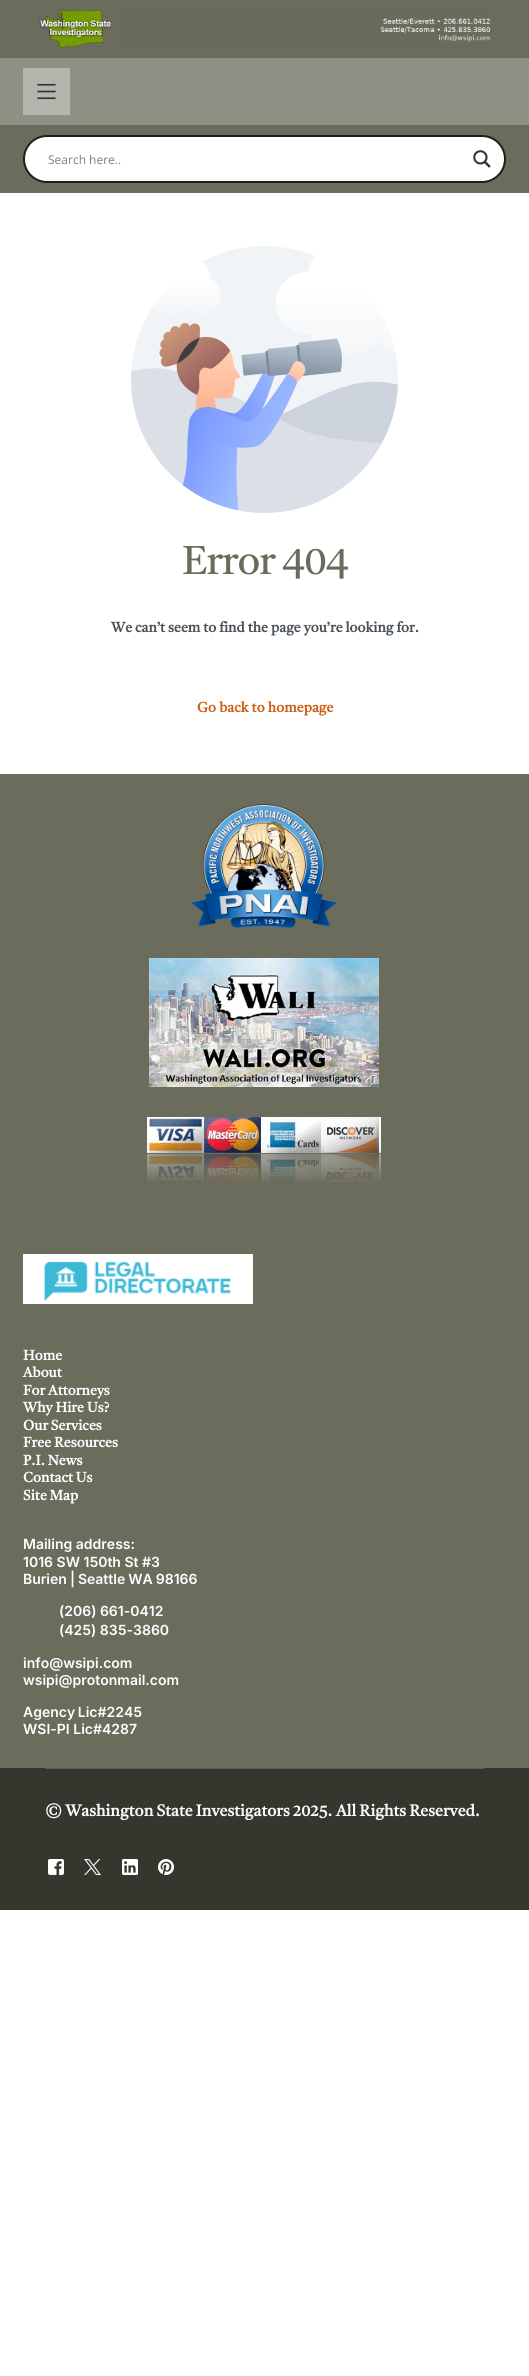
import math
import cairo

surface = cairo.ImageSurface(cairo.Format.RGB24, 529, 2376)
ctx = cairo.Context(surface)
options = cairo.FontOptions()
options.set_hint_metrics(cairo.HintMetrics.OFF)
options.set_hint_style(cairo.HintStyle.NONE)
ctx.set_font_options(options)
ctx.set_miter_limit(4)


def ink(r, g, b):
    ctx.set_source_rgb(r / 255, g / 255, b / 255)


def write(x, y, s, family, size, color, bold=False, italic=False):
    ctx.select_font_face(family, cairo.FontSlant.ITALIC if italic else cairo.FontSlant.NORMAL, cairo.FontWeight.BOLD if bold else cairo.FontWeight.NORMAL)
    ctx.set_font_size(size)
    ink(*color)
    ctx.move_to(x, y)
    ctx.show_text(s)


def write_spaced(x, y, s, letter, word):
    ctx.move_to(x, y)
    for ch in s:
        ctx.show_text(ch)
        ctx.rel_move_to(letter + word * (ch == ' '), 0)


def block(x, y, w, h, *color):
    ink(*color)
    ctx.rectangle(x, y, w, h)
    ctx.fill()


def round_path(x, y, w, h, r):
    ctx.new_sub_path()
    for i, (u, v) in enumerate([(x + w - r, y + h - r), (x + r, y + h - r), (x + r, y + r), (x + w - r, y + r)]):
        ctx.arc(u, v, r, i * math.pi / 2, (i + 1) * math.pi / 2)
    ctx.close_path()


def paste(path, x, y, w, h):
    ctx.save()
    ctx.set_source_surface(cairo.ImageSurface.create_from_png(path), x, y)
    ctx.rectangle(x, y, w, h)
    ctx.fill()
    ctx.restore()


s1 = dict(family="Open Sans", size=12, color=(125, 125, 125))
s2 = dict(family="Tiro Telugu", size=14, color=(255, 255, 255), bold=True)
s3 = dict(family="Inter SemiBold", size=14, color=(255, 255, 255))

ink(255, 255, 255)
ctx.paint()
block(0, 0, 529, 193, 107, 108, 92)
paste("pic1.png", 39, 10, 452, 38)
block(0, 58, 529, 67, 144, 145, 133)
block(23, 68, 47, 47, 181, 181, 174)
paste("pic2.png", 37, 83, 19, 17)
ink(255, 255, 255)
round_path(24, 136, 481, 46, 23)
ctx.fill_preserve()
ink(30, 30, 30)
ctx.stroke()
write(48, 164, "Search here..", **s1)
paste("pic3.png", 473, 150, 18, 18)
paste("pic4.png", 131, 246, 267, 267)
ctx.select_font_face("Tiro Telugu")
ctx.set_font_size(40)
ink(107, 107, 92)
write_spaced(182, 574, "Error 404", -1, -2)
ctx.select_font_face("Tiro Telugu", cairo.FontSlant.NORMAL, cairo.FontWeight.BOLD)
ctx.set_font_size(14)
ink(73, 81, 89)
write_spaced(111, 632, "We can’t seem to find the", 0, -0.75)
write_spaced(271, 632, "page you’re looking for.", 0, -0.75)
ink(203, 96, 21)
write_spaced(197, 712, "Go back to homepage", 0, -0.5)
block(0, 774, 529, 994, 107, 108, 92)
paste("pic5.png", 191, 804, 146, 124)
paste("pic6.png", 149, 958, 230, 129)
paste("pic7.png", 147, 1117, 234, 65)
paste("pic8.png", 23, 1254, 230, 50)
write(23, 1360, "Home", **s2)
write(23, 1377, "About", **s2)
write_spaced(23, 1395, "For Attorneys", 0, -0.75)
write_spaced(23, 1412, "Why Hire Us?", 0, -0.75)
write_spaced(23, 1430, "Our Services", 0, -1)
write_spaced(23, 1447, "Free Resources", 0, -0.75)
write_spaced(23, 1465, "P.I. News", 0, -0.75)
write_spaced(23, 1482, "Contact Us", 0, -1)
write_spaced(23, 1500, "Site Map", 0, -1)
write(23, 1549, "Mailing address:", **s3)
write(23, 1567, "1016 SW 150th St #3", **s3)
write_spaced(23, 1584, "Burien | Seattle WA 98166", 0, -0.5)
write(59, 1616, "(206) 661-0412", **s3)
write(59, 1635, "(425) 835-3860", **s3)
write(23, 1668, "info@wsipi.com", **s3)
write(23, 1685, "wsipi@protonmail.com", **s3)
write_spaced(23, 1717, "Agency Lic#2245", 0, -1)
write(23, 1734, "WSI-PI Lic#4287", **s3)
block(0, 1768, 529, 142, 53, 54, 46)
block(45, 1768, 439, 1, 93, 94, 88)
ctx.select_font_face("Tiro Telugu", cairo.FontSlant.NORMAL, cairo.FontWeight.BOLD)
ctx.set_font_size(16)
ink(248, 252, 252)
write_spaced(45, 1816, "© Washington State Investigators 2025.", 0, -1)
write_spaced(336, 1816, "All Rights Reserved.", 0, -1)
paste("pic9.png", 48, 1859, 16, 16)
paste("pic10.png", 84, 1859, 17, 16)
paste("pic11.png", 122, 1859, 16, 16)
paste("pic12.png", 158, 1859, 16, 16)
surface.write_to_png("screenshot.png")
